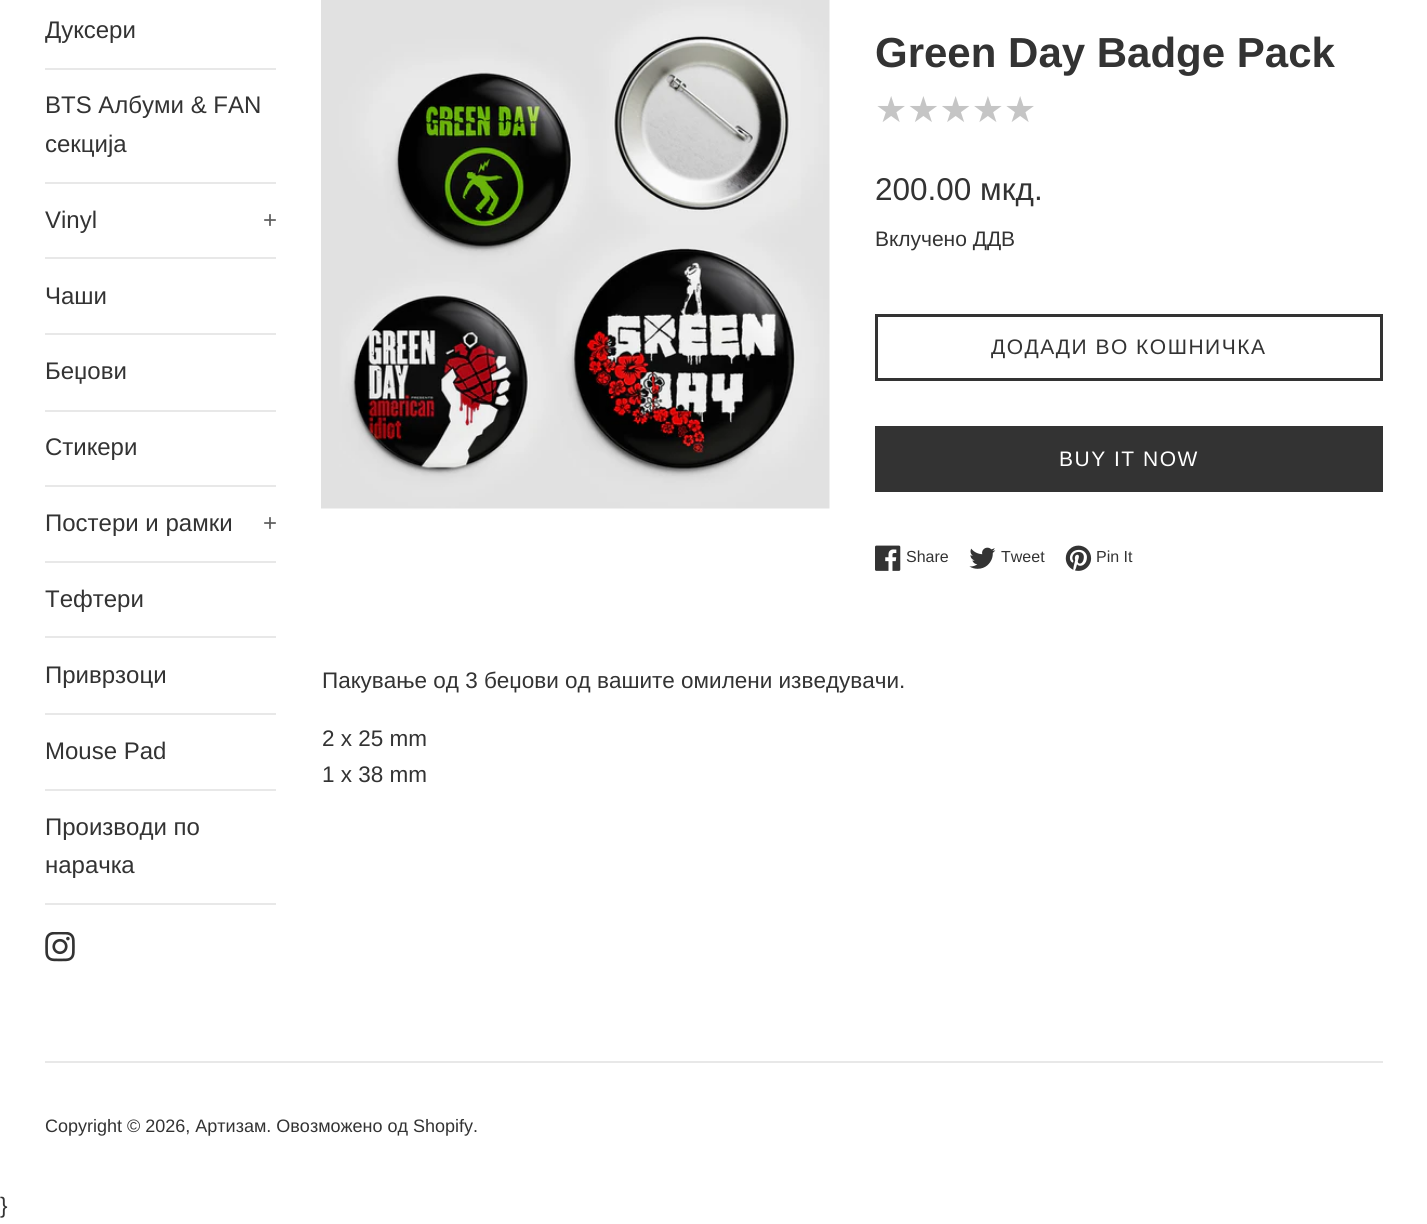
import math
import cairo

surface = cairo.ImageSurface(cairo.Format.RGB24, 1427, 1224)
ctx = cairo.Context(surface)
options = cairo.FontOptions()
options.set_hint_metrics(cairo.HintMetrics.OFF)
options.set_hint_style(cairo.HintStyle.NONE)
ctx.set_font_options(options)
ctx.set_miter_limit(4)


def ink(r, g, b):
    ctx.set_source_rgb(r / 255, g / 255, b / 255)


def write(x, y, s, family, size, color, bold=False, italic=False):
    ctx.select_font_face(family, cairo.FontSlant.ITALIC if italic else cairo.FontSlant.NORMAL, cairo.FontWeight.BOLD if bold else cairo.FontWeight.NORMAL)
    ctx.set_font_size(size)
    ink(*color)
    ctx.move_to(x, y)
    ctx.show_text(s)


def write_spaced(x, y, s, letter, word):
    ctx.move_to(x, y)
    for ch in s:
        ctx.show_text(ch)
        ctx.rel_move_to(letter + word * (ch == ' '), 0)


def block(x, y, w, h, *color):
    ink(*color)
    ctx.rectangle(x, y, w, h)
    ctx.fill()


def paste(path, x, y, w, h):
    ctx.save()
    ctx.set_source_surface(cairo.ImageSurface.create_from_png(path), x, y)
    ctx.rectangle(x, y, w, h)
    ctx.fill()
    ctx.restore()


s1 = dict(family="Liberation Sans", size=24, color=(51, 51, 51))
s2 = dict(family="Liberation Sans", size=24, color=(92, 92, 92))
s3 = dict(family="Liberation Sans", size=42, color=(51, 51, 51), bold=True)
s4 = dict(family="DejaVu Sans", size=36, color=(197, 197, 197))
s5 = dict(family="Liberation Sans", size=31.5, color=(51, 51, 51))
s6 = dict(family="Liberation Sans", size=21, color=(51, 51, 51))
s7 = dict(family="Liberation Sans", size=16, color=(51, 51, 51))
s8 = dict(family="Liberation Sans", size=22.5, color=(51, 51, 51))
s9 = dict(family="Liberation Sans", size=18, color=(51, 51, 51))

ink(255, 255, 255)
ctx.paint()
block(45, 68, 231, 2, 232, 232, 232)
write(45, 38, "Дуксери", **s1)
block(45, 182, 231, 2, 232, 232, 232)
write(45, 113, "BTS Албуми & FAN", **s1)
write(45, 152, "секција", **s1)
block(45, 257, 231, 2, 232, 232, 232)
write(45, 228, "Vinyl", **s1)
write(263, 228, "+", **s2)
block(45, 333, 231, 2, 232, 232, 232)
write(45, 304, "Чаши", **s1)
block(45, 410, 231, 2, 232, 232, 232)
write(45, 379, "Беџови", **s1)
block(45, 485, 231, 2, 232, 232, 232)
write(45, 455, "Стикери", **s1)
block(45, 561, 231, 2, 232, 232, 232)
write(45, 531, "Постери и рамки", **s1)
write(263, 531, "+", **s2)
block(45, 636, 231, 2, 232, 232, 232)
write(45, 607, "Тефтери", **s1)
block(45, 713, 231, 2, 232, 232, 232)
write(45, 683, "Приврзоци", **s1)
block(45, 789, 231, 2, 232, 232, 232)
write(45, 759, "Mouse Pad", **s1)
block(45, 903, 231, 2, 232, 232, 232)
write(45, 835, "Производи по", **s1)
write(45, 873, "нарачка", **s1)
paste("pic1.png", 45, 932, 30, 30)
paste("pic2.png", 321, 0, 509, 509)
write(875, 67, "Green Day Badge Pack", **s3)
write(875, 122, "★★★★★", **s4)
write(875, 200, "200.00 мкд.", **s5)
write(875, 246, "Вклучено ДДВ", **s6)
ctx.rectangle(876.5, 315.5, 505, 64)
ctx.set_line_width(3)
ctx.stroke()
write_spaced(991, 354, "ДОДАДИ ВО КОШНИЧКА", 1.5, 0)
block(875, 426, 508, 66, 51, 51, 51)
ink(255, 255, 255)
write_spaced(1059, 466, "BUY IT NOW", 1.5, 0)
paste("pic3.png", 875, 545, 26, 26)
write(906, 562, "Share", **s7)
paste("pic4.png", 969, 547, 27, 22)
write(1001, 562, "Tweet", **s7)
paste("pic5.png", 1065, 545, 27, 26)
write(1096, 562, "Pin It", **s7)
write(322, 688, "Пакување од 3 беџови од вашите омилени изведувачи.", **s8)
write(322, 746, "2 x 25 mm", **s8)
write(322, 782, "1 x 38 mm", **s8)
block(45, 1061, 1338, 2, 232, 232, 232)
write(45, 1132, "Copyright © 2026, Артизам. Овозможено од Shopify.", **s9)
write(0, 1213, "}", **s8)
surface.write_to_png("screenshot.png")
